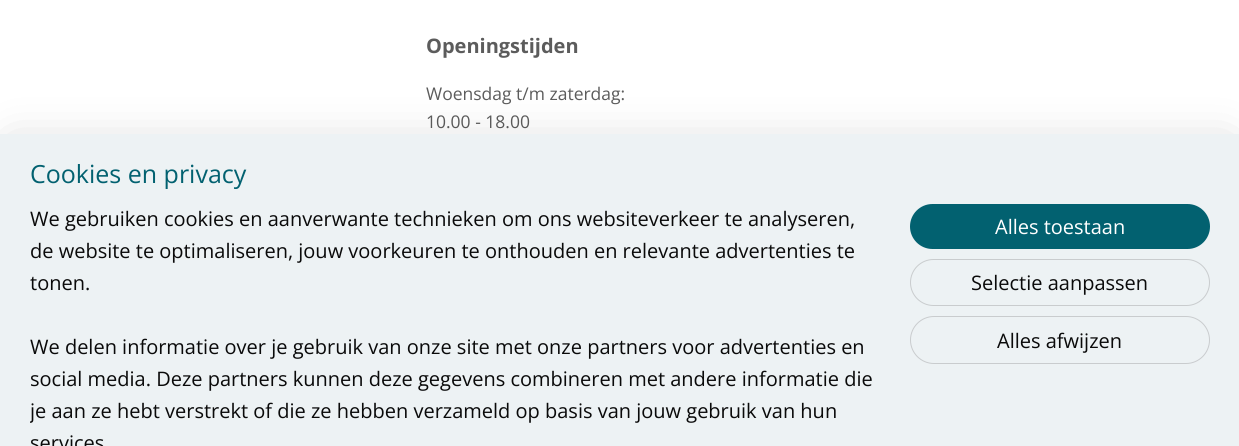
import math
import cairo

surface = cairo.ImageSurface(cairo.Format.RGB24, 1239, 446)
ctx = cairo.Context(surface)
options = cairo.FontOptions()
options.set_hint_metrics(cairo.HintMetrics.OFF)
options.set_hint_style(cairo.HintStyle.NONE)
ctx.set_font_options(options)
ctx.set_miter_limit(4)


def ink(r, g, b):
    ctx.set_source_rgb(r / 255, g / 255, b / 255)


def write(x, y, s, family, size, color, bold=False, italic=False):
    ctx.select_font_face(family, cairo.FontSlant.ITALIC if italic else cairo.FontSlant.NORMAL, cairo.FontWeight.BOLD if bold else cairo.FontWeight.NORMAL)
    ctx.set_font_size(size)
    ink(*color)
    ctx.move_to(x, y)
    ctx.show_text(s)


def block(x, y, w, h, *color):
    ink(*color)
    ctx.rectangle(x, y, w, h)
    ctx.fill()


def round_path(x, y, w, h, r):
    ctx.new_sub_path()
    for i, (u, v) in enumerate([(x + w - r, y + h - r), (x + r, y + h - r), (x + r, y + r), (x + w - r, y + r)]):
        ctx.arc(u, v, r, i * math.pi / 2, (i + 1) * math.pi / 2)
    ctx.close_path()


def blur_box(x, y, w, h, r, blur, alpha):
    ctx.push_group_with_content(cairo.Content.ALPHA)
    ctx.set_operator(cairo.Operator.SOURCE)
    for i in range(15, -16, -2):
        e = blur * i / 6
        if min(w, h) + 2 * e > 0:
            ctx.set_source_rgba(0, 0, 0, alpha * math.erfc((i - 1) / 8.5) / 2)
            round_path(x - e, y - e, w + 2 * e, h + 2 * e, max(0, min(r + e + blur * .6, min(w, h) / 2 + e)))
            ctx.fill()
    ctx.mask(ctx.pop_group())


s1 = dict(family="Open Sans", size=20, color=(92, 92, 92), bold=True)
s2 = dict(family="Open Sans", size=17.5, color=(92, 92, 92))
s3 = dict(family="Open Sans", size=25, color=(2, 97, 112))
s4 = dict(family="Open Sans", size=20, color=(10, 10, 10))
s5 = dict(family="Open Sans", size=20, color=(255, 255, 255))

ink(255, 255, 255)
ctx.paint()
write(426, 53, "Openingstijden", **s1)
write(426, 100, "Woensdag t/m zaterdag:", **s2)
write(426, 128, "10.00 - 18.00", **s2)
ink(0, 0, 0)
blur_box(13, 146, 1215, 288, 0, 22.5, 0.2)
block(0, 134, 1239, 312, 237, 242, 244)
write(30, 183, "Cookies en privacy", **s3)
write(30, 226, "We gebruiken cookies en aanverwante technieken om ons websiteverkeer te analyseren,", **s4)
write(30, 258, "de website te optimaliseren, jouw voorkeuren te onthouden en relevante advertenties te", **s4)
write(30, 290, "tonen.", **s4)
write(30, 354, "We delen informatie over je gebruik van onze site met onze partners voor advertenties en", **s4)
write(30, 386, "social media. Deze partners kunnen deze gegevens combineren met andere informatie die", **s4)
ctx.save()
ctx.rectangle(30, 204, 850, 242)
ctx.clip()
write(30, 418, "je aan ze hebt verstrekt of die ze hebben verzameld op basis van jouw gebruik van hun", **s4)
ctx.restore()
write(30, 450, "services", **s4)
ink(2, 97, 112)
round_path(910, 204, 300, 45, 22.5)
ctx.fill()
write(995, 234, "Alles toestaan", **s5)
round_path(910.5, 259.5, 299, 46, 23)
ink(201, 204, 206)
ctx.set_line_width(1)
ctx.stroke()
write(971, 290, "Selectie aanpassen", **s4)
round_path(910.5, 316.5, 299, 47, 23.5)
ink(201, 204, 206)
ctx.stroke()
write(997, 348, "Alles afwijzen", **s4)
surface.write_to_png("screenshot.png")
